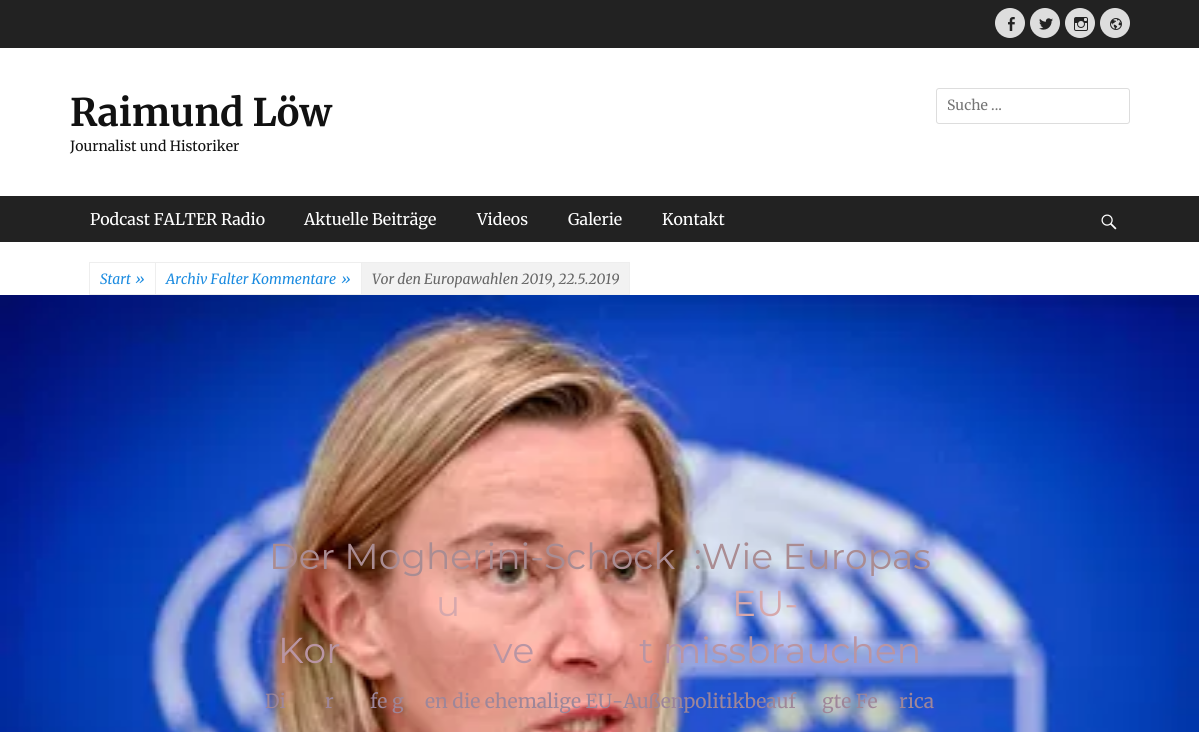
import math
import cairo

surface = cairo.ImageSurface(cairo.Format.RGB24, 1199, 732)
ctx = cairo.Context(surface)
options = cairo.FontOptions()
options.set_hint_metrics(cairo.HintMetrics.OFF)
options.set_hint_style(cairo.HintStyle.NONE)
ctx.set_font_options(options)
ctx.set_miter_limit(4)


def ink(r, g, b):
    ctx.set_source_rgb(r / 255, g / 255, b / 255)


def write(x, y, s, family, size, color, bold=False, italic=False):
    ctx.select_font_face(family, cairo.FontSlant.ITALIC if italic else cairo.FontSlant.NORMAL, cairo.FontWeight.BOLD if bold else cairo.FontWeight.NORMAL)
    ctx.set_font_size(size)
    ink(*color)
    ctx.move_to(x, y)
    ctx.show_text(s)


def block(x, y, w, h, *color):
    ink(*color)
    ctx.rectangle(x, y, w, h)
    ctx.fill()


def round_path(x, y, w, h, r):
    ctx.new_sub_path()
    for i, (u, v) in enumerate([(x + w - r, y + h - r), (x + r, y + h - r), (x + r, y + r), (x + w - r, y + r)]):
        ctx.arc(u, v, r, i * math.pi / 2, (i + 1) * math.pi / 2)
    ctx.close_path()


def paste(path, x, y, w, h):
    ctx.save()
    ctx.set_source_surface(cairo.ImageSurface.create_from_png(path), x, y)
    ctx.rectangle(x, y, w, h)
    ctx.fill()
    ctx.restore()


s1 = dict(family="Merriweather", size=38, color=(17, 17, 17), bold=True)
s2 = dict(family="Merriweather", size=14, color=(17, 17, 17))
s3 = dict(family="Merriweather", size=14, color=(117, 117, 117))
s4 = dict(family="Merriweather", size=16, color=(255, 255, 255))
s5 = dict(family="Merriweather", size=14, color=(27, 139, 224), italic=True)
s6 = dict(family="Merriweather", size=14, color=(102, 102, 102), italic=True)
s7 = dict(family="Montserrat", size=36, color=(170, 140, 146))
s8 = dict(family="Montserrat", size=36, color=(214, 168, 172))
s9 = dict(family="Montserrat", size=36, color=(185, 149, 163))
s10 = dict(family="Merriweather", size=19.25, color=(158, 134, 153))

ink(255, 255, 255)
ctx.paint()
block(0, 0, 1199, 48, 34, 34, 34)
ink(221, 221, 221)
ctx.arc(1010, 23, 15, 0, 2 * math.pi)
ctx.fill()
paste("pic1.png", 1008, 17, 7, 14)
ctx.arc(1045, 23, 15, 0, 2 * math.pi)
ctx.fill()
paste("pic2.png", 1039, 18, 14, 12)
ctx.arc(1080, 23, 15, 0, 2 * math.pi)
ctx.fill()
paste("pic3.png", 1074, 17, 14, 14)
ctx.arc(1115, 23, 15, 0, 2 * math.pi)
ctx.fill()
paste("pic4.png", 1110, 18, 12, 12)
write(70, 126, "Raimund Löw", **s1)
write(70, 151, "Journalist und Historiker", **s2)
round_path(936.5, 88.5, 193, 35, 2.5)
ink(221, 221, 221)
ctx.set_line_width(1)
ctx.stroke()
write(947, 110, "Suche ...", **s3)
block(0, 196, 1199, 46, 34, 34, 34)
write(90, 225, "Podcast FALTER Radio", **s4)
write(304, 225, "Aktuelle Beiträge", **s4)
write(477, 225, "Videos", **s4)
write(568, 225, "Galerie", **s4)
write(662, 225, "Kontakt", **s4)
paste("pic5.png", 1101, 214, 16, 16)
ctx.rectangle(89.5, 262.5, 66, 32)
ink(238, 238, 238)
ctx.stroke()
write(100, 284, "Start", **s5)
write(135, 284, "»", **s5)
ctx.rectangle(155.5, 262.5, 206, 32)
ink(238, 238, 238)
ctx.stroke()
write(166, 284, "Archiv Falter Kommentare", **s5)
write(341, 284, "»", **s5)
ink(242, 242, 242)
ctx.rectangle(361.5, 262.5, 268, 32)
ctx.fill_preserve()
ink(238, 238, 238)
ctx.stroke()
write(372, 284, "Vor den Europawahlen 2019, 22.5.2019", **s6)
paste("pic6.png", 0, 295, 1199, 437)
write(269, 569, "Der Mogherini-Schock  :Wie Europas", **s7)
write(436, 616, "u", **s8)
write(732, 616, "EU-", **s8)
write(278, 663, "Kor", **s9)
write(493, 663, "ve", **s9)
write(639, 663, "t missbrauchen", **s9)
write(265, 708, "Di", **s10)
write(325, 708, "r", **s10)
write(370, 708, "fe g", **s10)
write(425, 708, "en die ehemalige EU-Außenpolitikbeauf", **s10)
write(822, 708, "gte Fe", **s10)
write(899, 708, "rica", **s10)
surface.write_to_png("screenshot.png")
